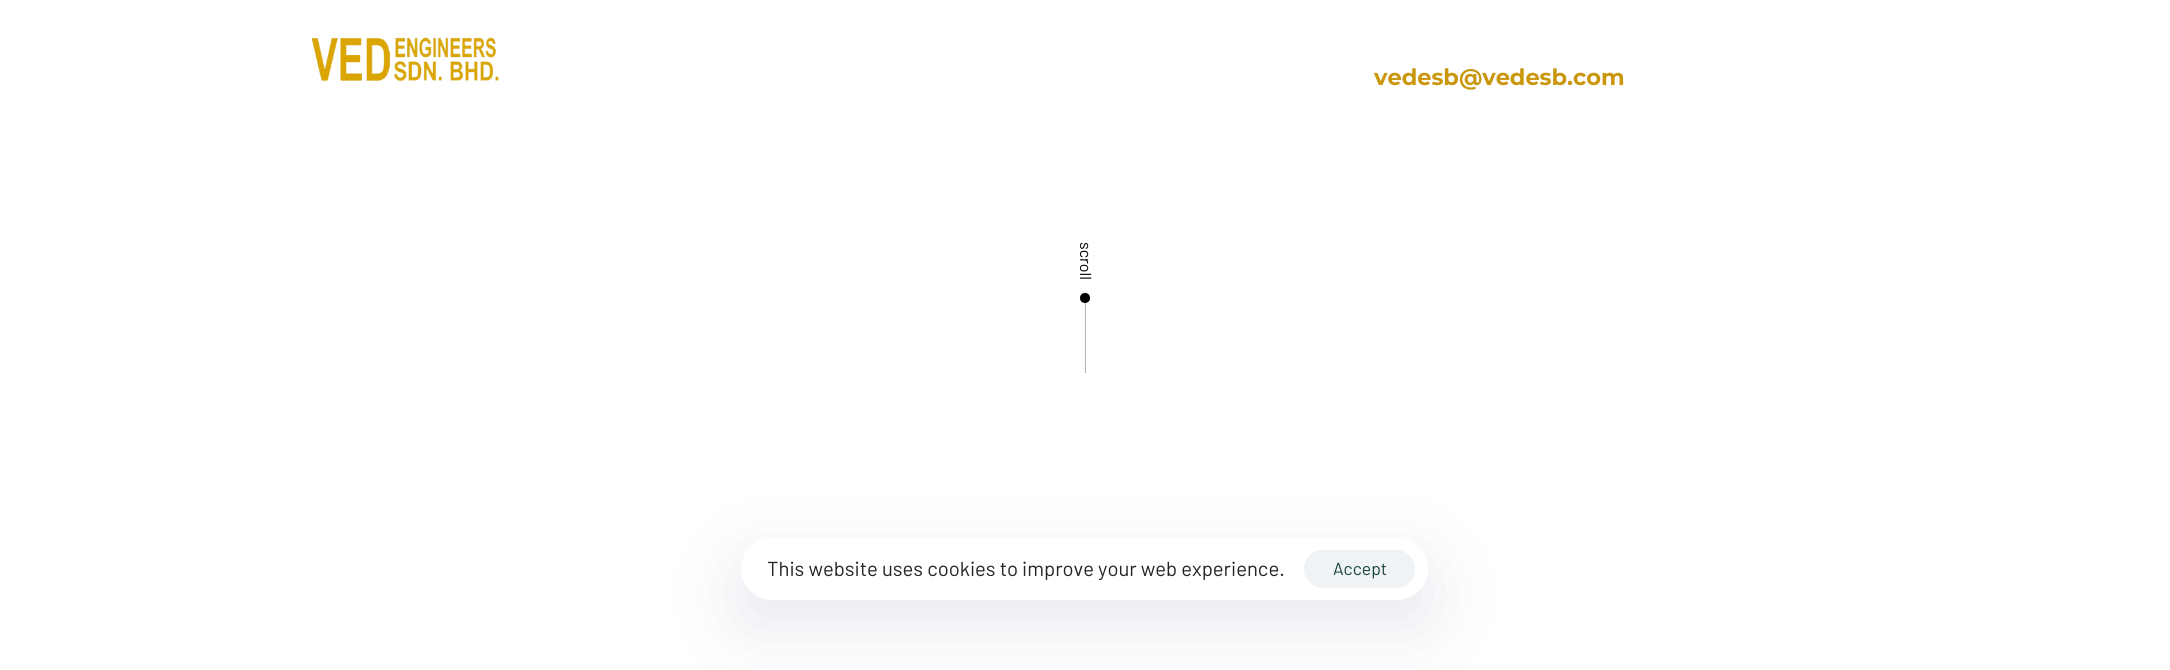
import math
import cairo

surface = cairo.ImageSurface(cairo.Format.RGB24, 2170, 670)
ctx = cairo.Context(surface)
options = cairo.FontOptions()
options.set_hint_metrics(cairo.HintMetrics.OFF)
options.set_hint_style(cairo.HintStyle.NONE)
ctx.set_font_options(options)
ctx.set_miter_limit(4)


def ink(r, g, b):
    ctx.set_source_rgb(r / 255, g / 255, b / 255)


def write(x, y, s, family, size, color, bold=False, italic=False):
    ctx.select_font_face(family, cairo.FontSlant.ITALIC if italic else cairo.FontSlant.NORMAL, cairo.FontWeight.BOLD if bold else cairo.FontWeight.NORMAL)
    ctx.set_font_size(size)
    ink(*color)
    ctx.move_to(x, y)
    ctx.show_text(s)


def block(x, y, w, h, *color):
    ink(*color)
    ctx.rectangle(x, y, w, h)
    ctx.fill()


def round_path(x, y, w, h, r):
    ctx.new_sub_path()
    for i, (u, v) in enumerate([(x + w - r, y + h - r), (x + r, y + h - r), (x + r, y + r), (x + w - r, y + r)]):
        ctx.arc(u, v, r, i * math.pi / 2, (i + 1) * math.pi / 2)
    ctx.close_path()


def blur_box(x, y, w, h, r, blur, alpha):
    ctx.push_group_with_content(cairo.Content.ALPHA)
    ctx.set_operator(cairo.Operator.SOURCE)
    for i in range(15, -16, -2):
        e = blur * i / 6
        if min(w, h) + 2 * e > 0:
            ctx.set_source_rgba(0, 0, 0, alpha * math.erfc((i - 1) / 8.5) / 2)
            round_path(x - e, y - e, w + 2 * e, h + 2 * e, max(0, min(r + e + blur * .6, min(w, h) / 2 + e)))
            ctx.fill()
    ctx.mask(ctx.pop_group())


def paste(path, x, y, w, h):
    ctx.save()
    ctx.set_source_surface(cairo.ImageSurface.create_from_png(path), x, y)
    ctx.rectangle(x, y, w, h)
    ctx.fill()
    ctx.restore()


s1 = dict(family="Montserrat Thin", size=22.5, color=(201, 150, 12))
s2 = dict(family="Barlow", size=16, color=(0, 0, 0))
s3 = dict(family="Barlow", size=20.25, color=(36, 36, 36))
s4 = dict(family="Barlow", size=17.5, color=(24, 67, 65))

ink(255, 255, 255)
ctx.paint()
paste("pic1.png", 311, 37, 188, 45)
write(1374, 85, "vedesb@vedesb.com", **s1)
ctx.save()
ctx.translate(1080, 242)
ctx.rotate(90 * math.pi / 180)
write(0, 0, "scroll", **s2)
ctx.restore()
block(1085, 298, 1, 75, 179, 179, 179)
ink(0, 0, 0)
ctx.new_path()
ctx.arc(1085, 298, 5, 0, 2 * math.pi)
ctx.fill()
ink(92, 107, 149)
blur_box(741, 563, 687, 62, 31, 37.5, 0.15)
ink(255, 255, 255)
round_path(741, 538, 687, 62, 31)
ctx.fill()
write(767, 576, "This website uses cookies to improve your web experience.", **s3)
ink(239, 243, 245)
round_path(1304, 550, 111, 38, 19)
ctx.fill()
write(1333, 575, "Accept", **s4)
surface.write_to_png("screenshot.png")
